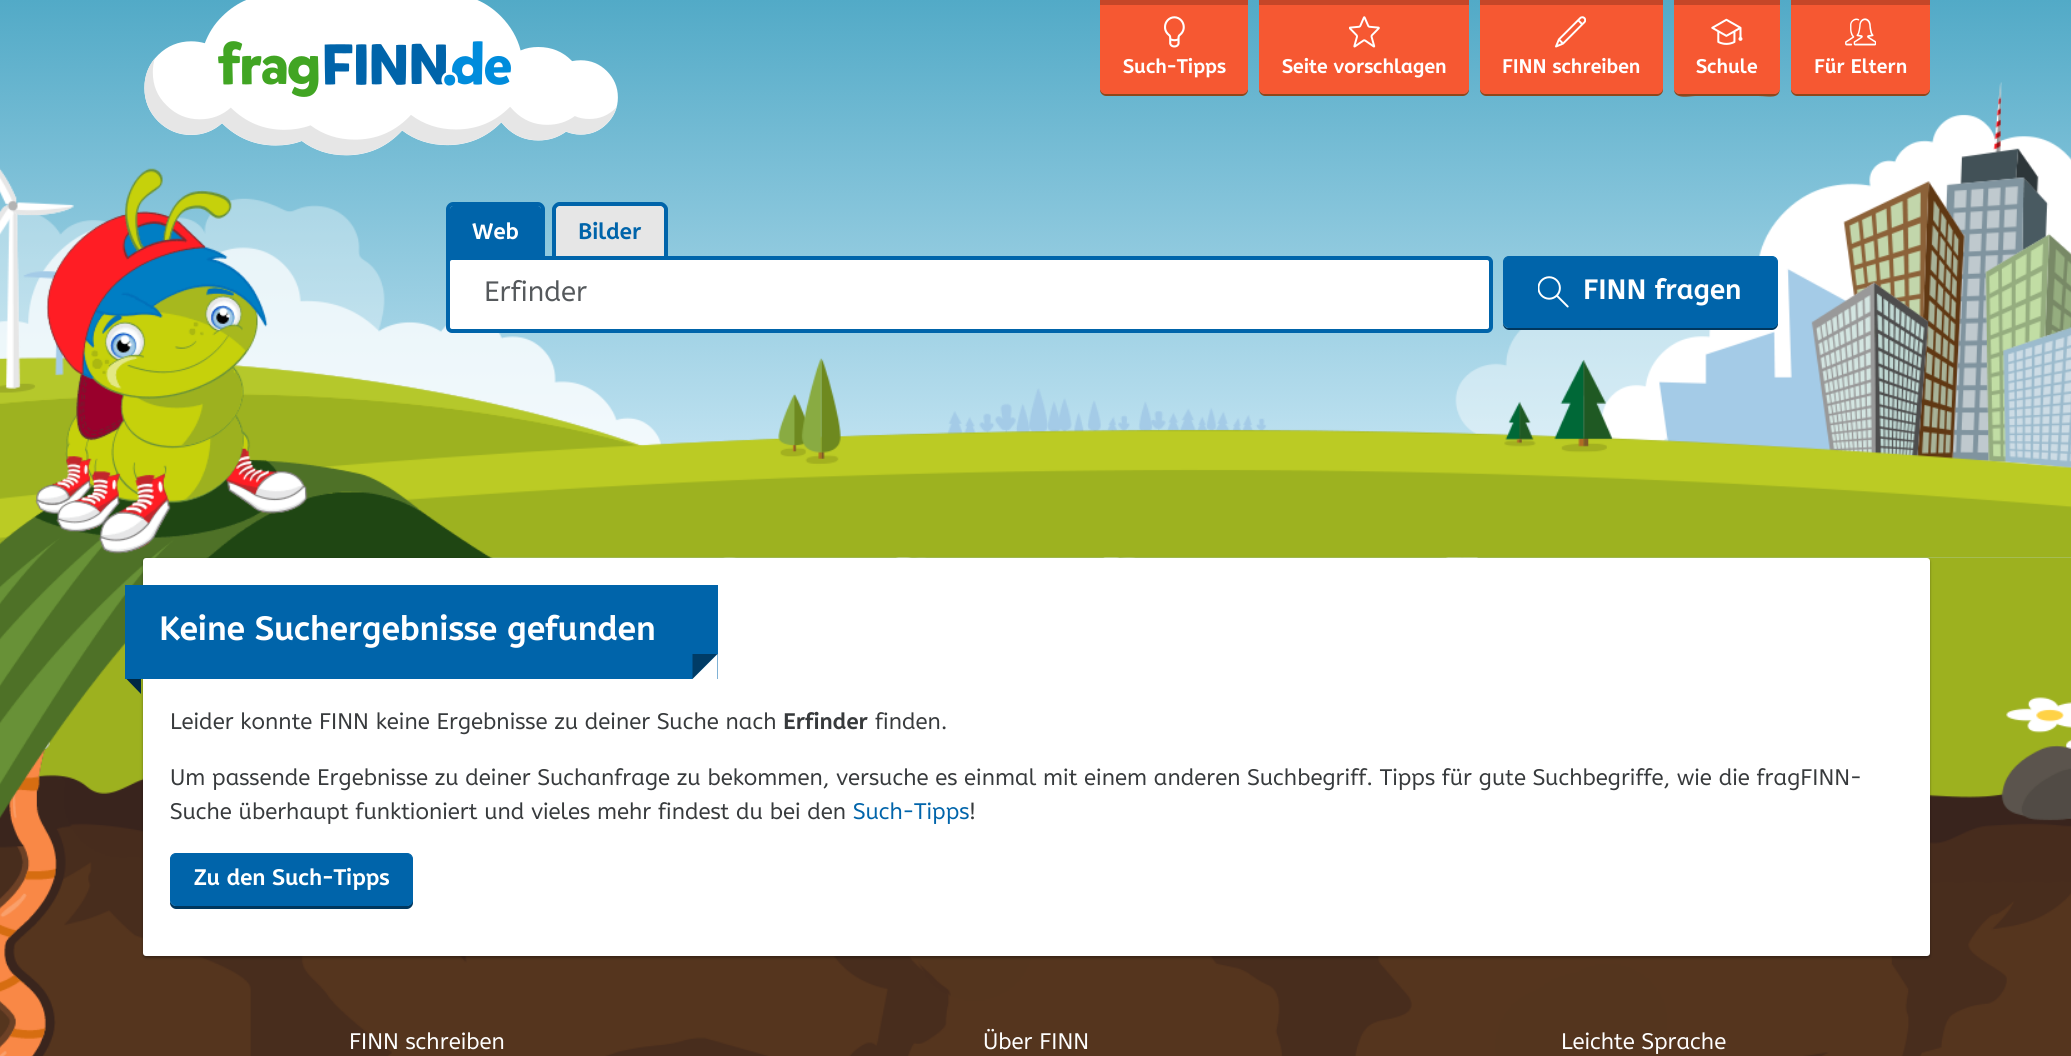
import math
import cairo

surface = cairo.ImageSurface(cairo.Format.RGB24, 2071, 1056)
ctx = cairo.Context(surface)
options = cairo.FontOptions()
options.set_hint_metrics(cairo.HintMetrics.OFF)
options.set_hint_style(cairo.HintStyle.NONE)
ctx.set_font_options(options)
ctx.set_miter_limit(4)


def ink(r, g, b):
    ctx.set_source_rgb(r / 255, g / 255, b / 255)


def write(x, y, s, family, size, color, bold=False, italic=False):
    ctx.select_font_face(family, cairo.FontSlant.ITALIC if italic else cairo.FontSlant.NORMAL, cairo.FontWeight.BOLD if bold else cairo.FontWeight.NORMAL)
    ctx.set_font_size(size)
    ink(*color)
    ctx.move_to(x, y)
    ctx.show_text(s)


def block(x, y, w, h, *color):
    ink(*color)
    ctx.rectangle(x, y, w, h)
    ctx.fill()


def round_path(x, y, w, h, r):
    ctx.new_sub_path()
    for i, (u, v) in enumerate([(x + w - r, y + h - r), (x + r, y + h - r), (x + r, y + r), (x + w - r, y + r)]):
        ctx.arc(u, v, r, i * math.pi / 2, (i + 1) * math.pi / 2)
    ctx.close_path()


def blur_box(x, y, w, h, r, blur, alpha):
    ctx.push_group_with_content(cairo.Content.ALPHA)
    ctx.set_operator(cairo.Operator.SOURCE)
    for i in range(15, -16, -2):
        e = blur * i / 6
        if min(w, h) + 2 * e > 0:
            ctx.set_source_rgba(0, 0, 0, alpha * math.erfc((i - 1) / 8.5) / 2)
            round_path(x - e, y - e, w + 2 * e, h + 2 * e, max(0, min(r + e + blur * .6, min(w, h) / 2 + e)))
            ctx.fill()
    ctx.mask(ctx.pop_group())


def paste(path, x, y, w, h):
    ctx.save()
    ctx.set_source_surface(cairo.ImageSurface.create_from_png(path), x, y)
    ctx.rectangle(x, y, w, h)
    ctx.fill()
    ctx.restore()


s1 = dict(family="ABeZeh", size=19.75, color=(255, 255, 255), bold=True)
s2 = dict(family="ABeZeh", size=22.5, color=(255, 255, 255), bold=True)
s3 = dict(family="ABeZeh", size=22.5, color=(0, 100, 170), bold=True)
s4 = dict(family="ABeZeh", size=28, color=(85, 89, 92))
s5 = dict(family="ABeZeh", size=28, color=(255, 255, 255), bold=True)
s6 = dict(family="ABeZeh", size=33.75, color=(255, 255, 255), bold=True)
s7 = dict(family="ABeZeh", size=22.5, color=(55, 58, 60))
s8 = dict(family="ABeZeh", size=22.5, color=(55, 58, 60), bold=True)
s9 = dict(family="ABeZeh", size=22.5, color=(0, 100, 170))
s10 = dict(family="ABeZeh", size=22.5, color=(255, 255, 255))

ink(157, 177, 31)
ctx.paint()
paste("pic1.png", 723, 557, 1348, 192)
paste("pic2.png", 0, 0, 2071, 558)
paste("pic3.png", 0, 209, 64, 184)
paste("pic4.png", 0, 168, 74, 67)
paste("pic5.png", 23, 246, 54, 33)
paste("pic6.png", 144, 0, 474, 156)
ink(142, 71, 27)
ctx.new_path()
ctx.move_to(1100, 87)
ctx.line_to(1100, 90)
ctx.curve_to(1100, 93, 1103, 96, 1106, 96)
ctx.line_to(1242, 96)
ctx.curve_to(1245, 96, 1248, 93, 1248, 90)
ctx.line_to(1248, -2)
ctx.line_to(1248, 87)
ctx.curve_to(1248, 91, 1244, 94, 1241, 94)
ctx.line_to(1107, 94)
ctx.curve_to(1103, 94, 1100, 91, 1100, 87)
ctx.close_path()
ctx.fill()
ink(246, 88, 50)
ctx.new_path()
ctx.move_to(1100, -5)
ctx.line_to(1248, -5)
ctx.line_to(1248, 88)
ctx.curve_to(1248, 91.5, 1245.5, 94, 1242, 94)
ctx.line_to(1106, 94)
ctx.curve_to(1102.5, 94, 1100, 91.5, 1100, 88)
ctx.close_path()
ctx.fill()
block(1100, 0, 148, 5, 197, 70, 40)
paste("pic7.png", 1164, 16, 21, 32)
write(1123, 73, "Such-Tipps", **s1)
ink(142, 71, 27)
ctx.new_path()
ctx.move_to(1259, 89)
ctx.line_to(1259, 90)
ctx.curve_to(1259, 93, 1262, 96, 1265, 96)
ctx.line_to(1463, 96)
ctx.curve_to(1466, 96, 1469, 93, 1469, 90)
ctx.line_to(1469, -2)
ctx.line_to(1469, 87)
ctx.curve_to(1469, 91, 1466, 94, 1462, 94)
ctx.line_to(1266, 94)
ctx.curve_to(1262, 94, 1260, 92, 1259, 89)
ctx.close_path()
ctx.fill()
ink(246, 88, 50)
ctx.new_path()
ctx.move_to(1259, -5)
ctx.line_to(1469, -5)
ctx.line_to(1469, 88)
ctx.curve_to(1469, 91.5, 1466.5, 94, 1463, 94)
ctx.line_to(1265, 94)
ctx.curve_to(1261.5, 94, 1259, 91.5, 1259, 88)
ctx.close_path()
ctx.fill()
block(1259, 0, 210, 5, 197, 70, 40)
paste("pic8.png", 1349, 16, 31, 32)
write(1282, 73, "Seite vorschlagen", **s1)
ink(142, 71, 27)
ctx.new_path()
ctx.move_to(1480, 87)
ctx.line_to(1480, 90)
ctx.curve_to(1480, 93, 1483, 96, 1486, 96)
ctx.line_to(1657, 96)
ctx.curve_to(1660, 96, 1663, 93, 1663, 90)
ctx.line_to(1663, -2)
ctx.line_to(1662, -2)
ctx.line_to(1662, 87)
ctx.curve_to(1662, 91, 1659, 94, 1656, 94)
ctx.line_to(1487, 94)
ctx.curve_to(1483, 94, 1480, 91, 1480, 87)
ctx.close_path()
ctx.fill()
ink(246, 88, 50)
ctx.new_path()
ctx.move_to(1480, -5)
ctx.line_to(1663, -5)
ctx.line_to(1663, 88)
ctx.curve_to(1663, 91.5, 1660.5, 94, 1657, 94)
ctx.line_to(1486, 94)
ctx.curve_to(1482.5, 94, 1480, 91.5, 1480, 88)
ctx.close_path()
ctx.fill()
block(1480, 0, 183, 5, 197, 70, 40)
paste("pic9.png", 1555, 16, 31, 32)
write(1502, 73, "FINN schreiben", **s1)
ink(142, 71, 27)
ctx.new_path()
ctx.move_to(1674, 89)
ctx.curve_to(1674, 100, 1689, 96, 1696, 96)
ctx.line_to(1758, 96)
ctx.curve_to(1770, 96, 1780, 100, 1780, 87)
ctx.curve_to(1780, 91, 1777, 94, 1773, 94)
ctx.line_to(1680, 94)
ctx.curve_to(1677, 94, 1675, 92, 1674, 89)
ctx.close_path()
ctx.fill()
ink(246, 88, 50)
ctx.new_path()
ctx.move_to(1674, -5)
ctx.line_to(1780, -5)
ctx.line_to(1780, 88)
ctx.curve_to(1780, 91.5, 1777.5, 94, 1774, 94)
ctx.line_to(1680, 94)
ctx.curve_to(1676.5, 94, 1674, 91.5, 1674, 88)
ctx.close_path()
ctx.fill()
block(1674, 0, 106, 5, 197, 70, 40)
paste("pic10.png", 1711, 18, 32, 27)
write(1696, 73, "Schule", **s1)
ink(142, 71, 27)
ctx.new_path()
ctx.move_to(1791, -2)
ctx.line_to(1791, 90)
ctx.curve_to(1791, 93, 1794, 96, 1797, 96)
ctx.line_to(1924, 96)
ctx.curve_to(1927, 96, 1930, 93, 1930, 90)
ctx.line_to(1930, 87)
ctx.curve_to(1930, 91, 1927, 94, 1923, 94)
ctx.line_to(1798, 94)
ctx.curve_to(1794, 94, 1791, 91, 1791, 87)
ctx.close_path()
ctx.fill()
ink(246, 88, 50)
ctx.new_path()
ctx.move_to(1791, -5)
ctx.line_to(1930, -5)
ctx.line_to(1930, 88)
ctx.curve_to(1930, 91.5, 1927.5, 94, 1924, 94)
ctx.line_to(1797, 94)
ctx.curve_to(1793.5, 94, 1791, 91.5, 1791, 88)
ctx.close_path()
ctx.fill()
block(1791, 0, 139, 5, 197, 70, 40)
paste("pic11.png", 1845, 18, 31, 28)
write(1814, 73, "Für Eltern", **s1)
paste("pic14.png", 0, 740, 2071, 316)
paste("pic13.png", 0, 168, 493, 651)
ink(0, 100, 170)
ctx.new_path()
ctx.move_to(453, 206)
ctx.line_to(538, 206)
ctx.curve_to(539.5, 206, 541, 207.5, 541, 209)
ctx.line_to(541, 263)
ctx.line_to(450, 263)
ctx.line_to(450, 209)
ctx.curve_to(450, 207.5, 451.5, 206, 453, 206)
ctx.close_path()
ctx.fill()
ctx.set_fill_rule(cairo.FillRule.EVEN_ODD)
ctx.new_path()
ctx.move_to(453, 202)
ctx.line_to(538, 202)
ctx.curve_to(542, 202, 545, 206, 545, 209)
ctx.line_to(545, 262)
ctx.line_to(446, 262)
ctx.line_to(446, 209)
ctx.curve_to(446, 206, 449, 202, 453, 202)
ctx.close_path()
ctx.move_to(453, 206)
ctx.line_to(538, 206)
ctx.curve_to(540, 206, 541, 208, 541, 209)
ctx.line_to(541, 262)
ctx.line_to(450, 262)
ctx.line_to(450, 209)
ctx.curve_to(450, 208, 451, 206, 453, 206)
ctx.close_path()
ctx.fill()
write(472, 239, "Web", **s2)
ink(230, 230, 230)
ctx.new_path()
ctx.move_to(559, 206)
ctx.line_to(661, 206)
ctx.curve_to(662.5, 206, 664, 207.5, 664, 209)
ctx.line_to(664, 263)
ctx.line_to(556, 263)
ctx.line_to(556, 209)
ctx.curve_to(556, 207.5, 557.5, 206, 559, 206)
ctx.close_path()
ctx.fill()
ink(0, 100, 170)
ctx.new_path()
ctx.move_to(559, 202)
ctx.line_to(661, 202)
ctx.curve_to(664, 202, 668, 206, 668, 209)
ctx.line_to(668, 262)
ctx.line_to(552, 262)
ctx.line_to(552, 209)
ctx.curve_to(552, 206, 556, 202, 559, 202)
ctx.close_path()
ctx.move_to(559, 206)
ctx.line_to(661, 206)
ctx.curve_to(662, 206, 664, 208, 664, 209)
ctx.line_to(664, 262)
ctx.line_to(556, 262)
ctx.line_to(556, 209)
ctx.curve_to(556, 208, 558, 206, 559, 206)
ctx.close_path()
ctx.fill()
write(578, 239, "Bilder", **s3)
ink(255, 255, 255)
round_path(448, 258, 1043, 73, 4)
ctx.fill_preserve()
ink(0, 100, 170)
ctx.set_line_width(4)
ctx.stroke()
write(484, 301, "Erfinder", **s4)
ink(0, 55, 94)
ctx.set_fill_rule(cairo.FillRule.WINDING)
ctx.new_path()
ctx.move_to(1503, 323)
ctx.line_to(1503, 324)
ctx.curve_to(1503, 327, 1506, 330, 1509, 330)
ctx.line_to(1772, 330)
ctx.curve_to(1775, 330, 1778, 327, 1778, 324)
ctx.line_to(1778, 265)
ctx.line_to(1777, 263)
ctx.line_to(1778, 321)
ctx.curve_to(1778, 324, 1774, 328, 1771, 328)
ctx.line_to(1509, 328)
ctx.curve_to(1506, 328, 1504, 326, 1503, 323)
ctx.close_path()
ctx.fill()
ink(0, 100, 170)
round_path(1503.5, 256.5, 274, 71, 5.5)
ctx.fill_preserve()
ctx.set_line_width(1)
ctx.stroke()
paste("pic12.png", 1538, 276, 31, 32)
write(1583, 299, "FINN fragen", **s5)
ink(0, 40, 68)
ctx.new_path()
ctx.move_to(141, 677.5)
ctx.line_to(141, 694)
ctx.line_to(125, 677.5)
ctx.close_path()
ctx.fill()
ink(0, 0, 0)
blur_box(143, 559, 1787, 399, 3, 1, 0.24)
blur_box(143, 559, 1787, 399, 3, 2, 0.12)
ink(255, 255, 255)
round_path(143, 558, 1787, 398, 3)
ctx.fill()
block(125, 585, 593, 94, 0, 100, 170)
write(159, 640, "Keine Suchergebnisse gefunden", **s6)
ink(0, 60, 102)
ctx.new_path()
ctx.move_to(692.5, 654)
ctx.line_to(717.5, 654)
ctx.line_to(692.5, 679)
ctx.close_path()
ctx.fill()
ink(255, 255, 255)
ctx.new_path()
ctx.move_to(717.5, 679)
ctx.line_to(692.5, 679)
ctx.line_to(717.5, 654)
ctx.close_path()
ctx.fill()
write(170, 729, "Leider konnte FINN keine Ergebnisse zu deiner Suche nach", **s7)
write(783, 729, "Erfinder", **s8)
write(875, 729, "finden.", **s7)
write(170, 785, "Um passende Ergebnisse zu deiner Suchanfrage zu bekommen, versuche es einmal mit einem anderen Suchbegriff. Tipps für gute Suchbegriffe, wie die fragFINN-", **s7)
write(170, 819, "Suche überhaupt funktioniert und vieles mehr findest du bei den", **s7)
write(853, 819, "Such-Tipps", **s9)
write(969, 819, "!", **s7)
ink(0, 55, 94)
ctx.new_path()
ctx.move_to(170, 900)
ctx.line_to(170, 903)
ctx.curve_to(170, 906, 173, 909, 176, 909)
ctx.line_to(407, 909)
ctx.curve_to(410, 909, 413, 906, 413, 903)
ctx.line_to(413, 861)
ctx.line_to(412, 859)
ctx.line_to(412, 900)
ctx.curve_to(412, 903, 409, 906, 406, 906)
ctx.line_to(177, 906)
ctx.curve_to(173, 906, 170, 903, 170, 900)
ctx.close_path()
ctx.fill()
ink(0, 100, 170)
round_path(170.5, 853.5, 242, 52, 5.5)
ctx.fill_preserve()
ctx.stroke()
write(194, 885, "Zu den Such-Tipps", **s2)
write(349, 1049, "FINN schreiben", **s10)
write(983, 1049, "Über FINN", **s10)
write(1561, 1049, "Leichte Sprache", **s10)
surface.write_to_png("screenshot.png")
